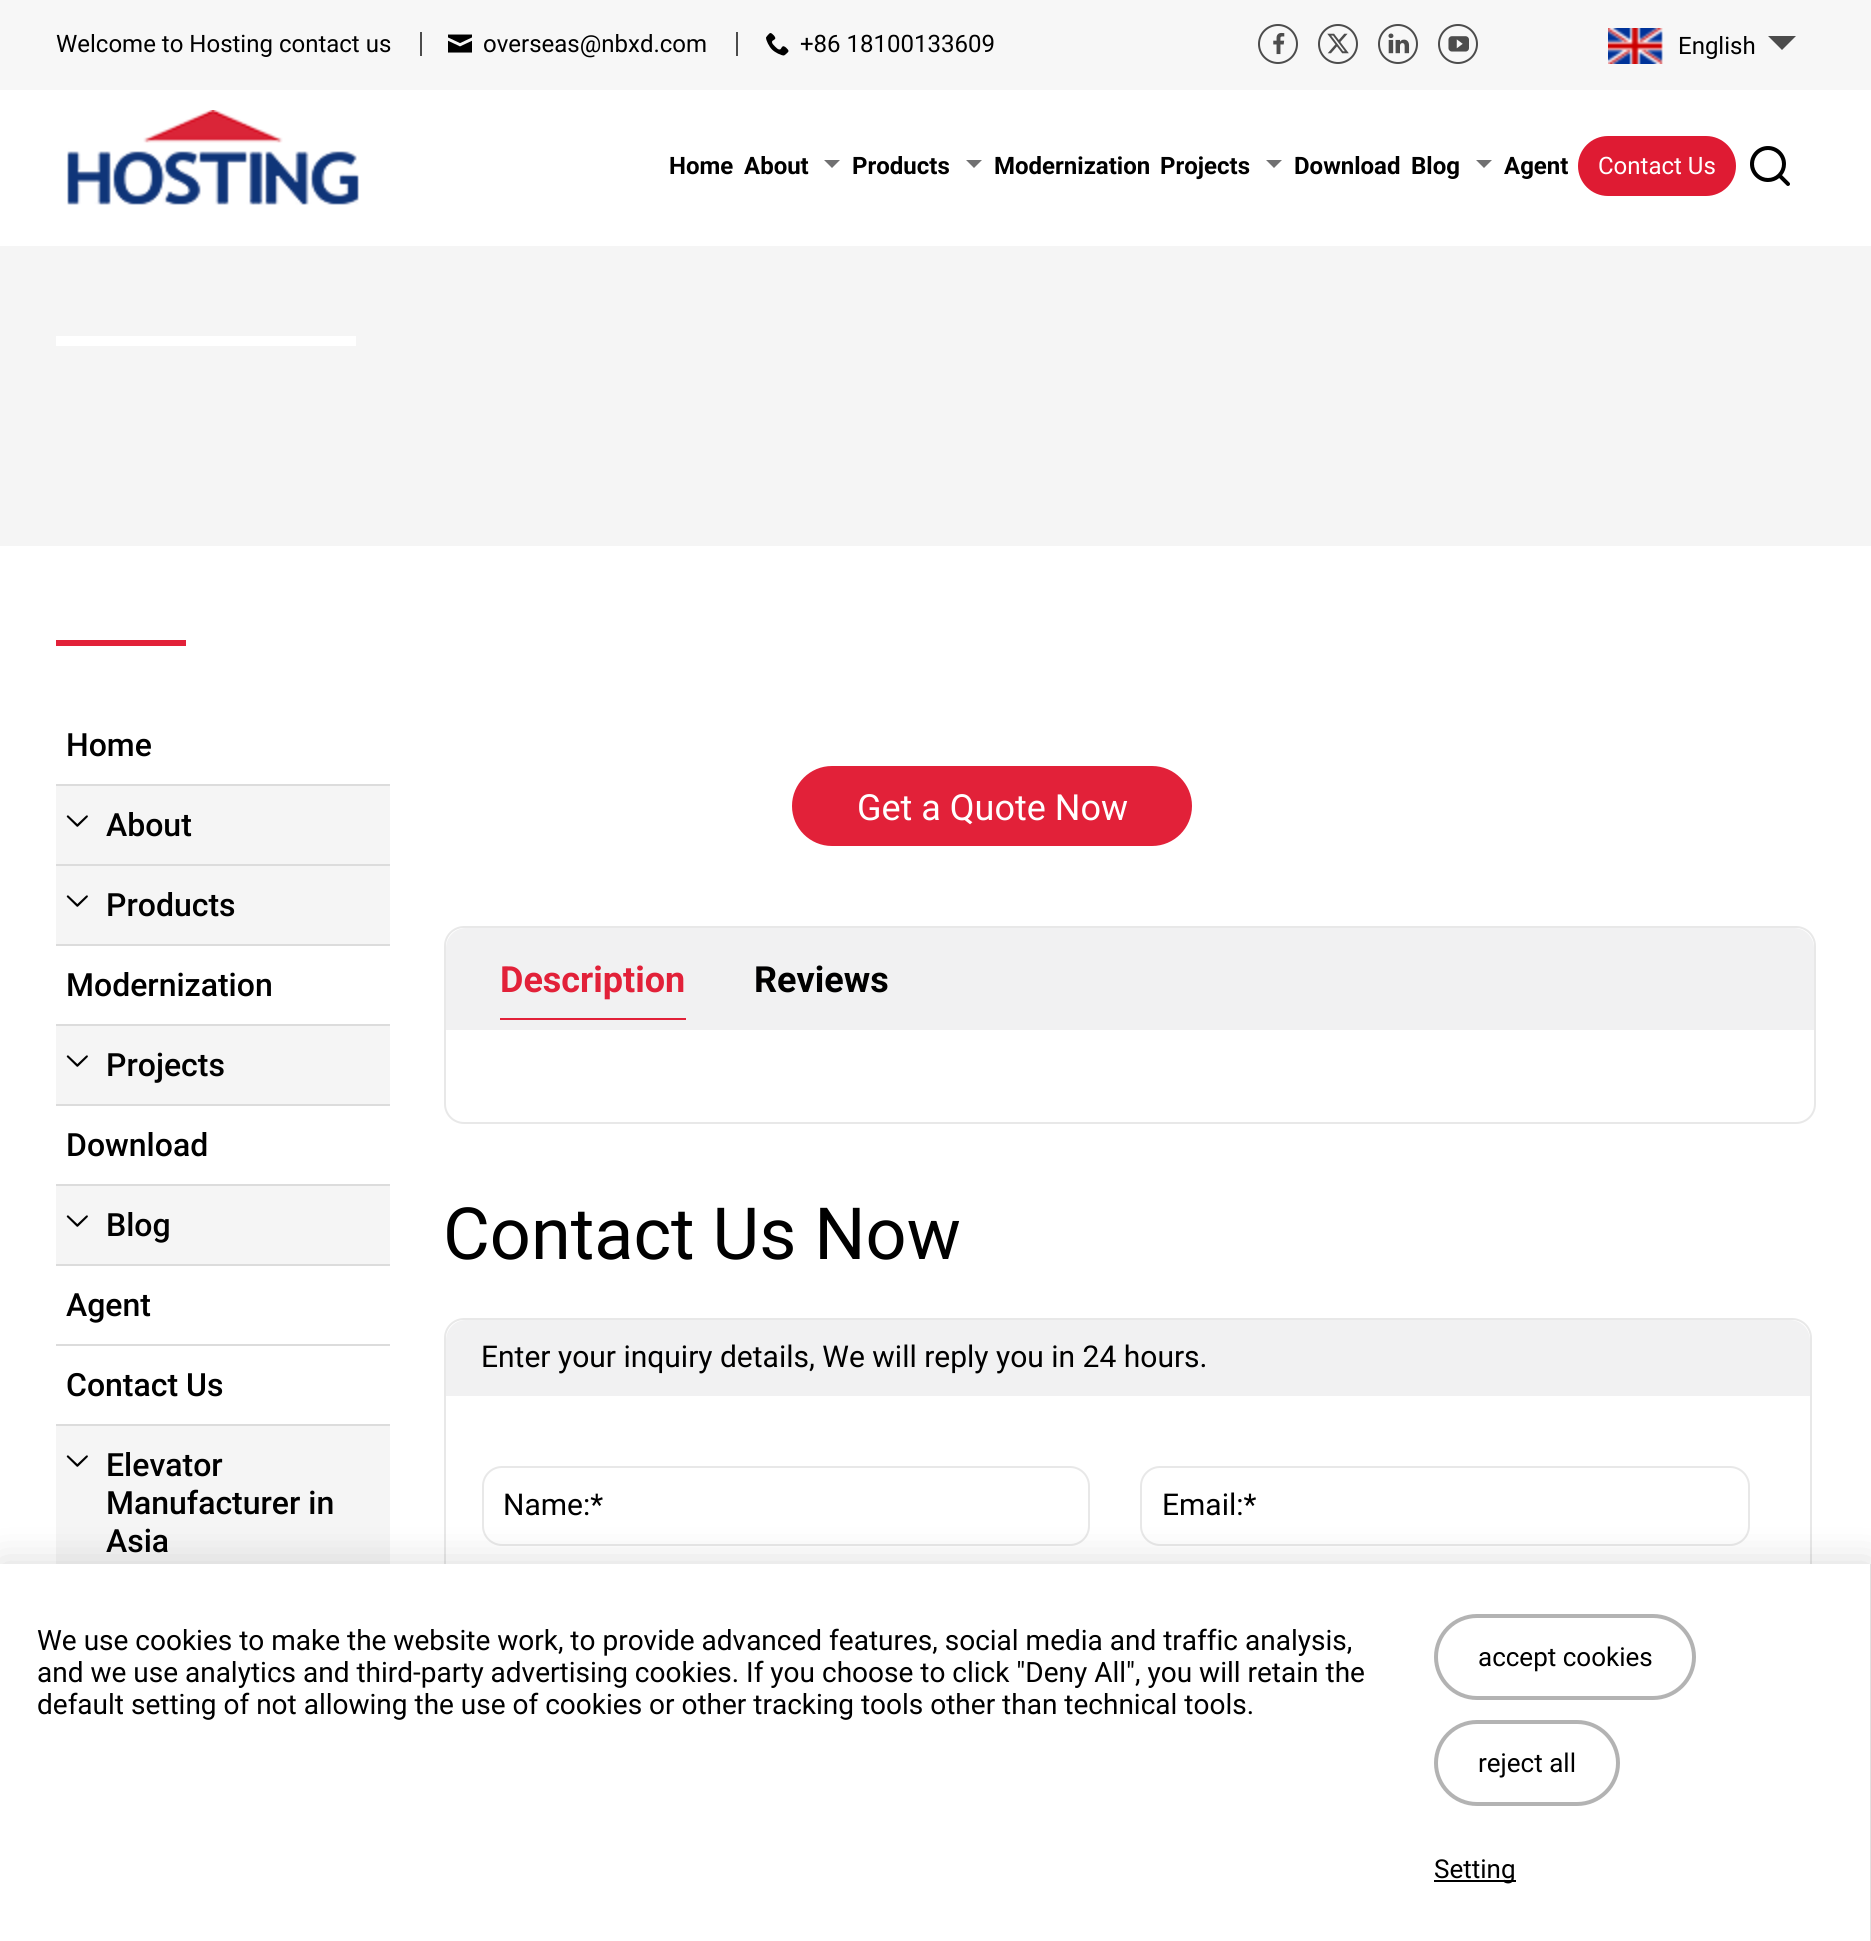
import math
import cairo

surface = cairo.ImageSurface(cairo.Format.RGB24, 1871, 1941)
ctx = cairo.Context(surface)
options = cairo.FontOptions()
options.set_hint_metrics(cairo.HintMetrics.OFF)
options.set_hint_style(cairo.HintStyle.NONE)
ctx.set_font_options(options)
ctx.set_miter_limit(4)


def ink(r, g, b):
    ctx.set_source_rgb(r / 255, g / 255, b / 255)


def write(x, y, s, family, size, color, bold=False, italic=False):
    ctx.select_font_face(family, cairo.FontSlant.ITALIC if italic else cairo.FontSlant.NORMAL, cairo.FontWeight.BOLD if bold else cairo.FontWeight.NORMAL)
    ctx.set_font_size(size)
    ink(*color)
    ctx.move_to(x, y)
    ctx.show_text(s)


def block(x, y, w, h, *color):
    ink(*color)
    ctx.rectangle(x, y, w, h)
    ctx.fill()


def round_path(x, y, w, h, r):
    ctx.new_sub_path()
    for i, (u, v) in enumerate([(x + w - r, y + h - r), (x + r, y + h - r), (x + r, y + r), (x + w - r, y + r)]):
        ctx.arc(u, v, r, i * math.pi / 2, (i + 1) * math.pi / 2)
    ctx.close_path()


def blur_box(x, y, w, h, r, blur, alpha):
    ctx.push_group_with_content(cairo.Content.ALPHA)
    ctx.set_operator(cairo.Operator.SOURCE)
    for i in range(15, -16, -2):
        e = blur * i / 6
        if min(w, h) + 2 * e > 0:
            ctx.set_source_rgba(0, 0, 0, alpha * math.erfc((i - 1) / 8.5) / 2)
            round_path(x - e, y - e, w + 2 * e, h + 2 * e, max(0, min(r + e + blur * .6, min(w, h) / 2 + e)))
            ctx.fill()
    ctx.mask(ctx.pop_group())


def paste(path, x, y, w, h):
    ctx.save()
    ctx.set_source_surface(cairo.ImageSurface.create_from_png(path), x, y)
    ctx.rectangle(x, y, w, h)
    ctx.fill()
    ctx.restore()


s1 = dict(family="Roboto", size=24, color=(0, 0, 0))
s2 = dict(family="Roboto", size=24, color=(0, 0, 0), bold=True)
s3 = dict(family="Roboto", size=24, color=(255, 255, 255))
s4 = dict(family="Roboto Medium", size=32, color=(0, 0, 0))
s5 = dict(family="Roboto", size=36, color=(255, 255, 255))
s6 = dict(family="Roboto", size=36, color=(226, 33, 57), bold=True)
s7 = dict(family="Roboto", size=36, color=(0, 0, 0), bold=True)
s8 = dict(family="Roboto", size=72, color=(0, 0, 0))
s9 = dict(family="Roboto", size=30, color=(0, 0, 0))
s10 = dict(family="Roboto", size=28, color=(0, 0, 0))
s11 = dict(family="Roboto", size=26, color=(0, 0, 0))

ink(255, 255, 255)
ctx.paint()
block(0, 0, 1871, 90, 247, 247, 247)
write(56, 52, "Welcome to Hosting contact us", **s1)
block(420, 32, 2, 24, 76, 76, 76)
paste("pic1.png", 448, 34, 24, 19)
write(483, 52, "overseas@nbxd.com", **s1)
block(736, 32, 2, 24, 76, 76, 76)
paste("pic2.png", 766, 33, 23, 23)
write(800, 52, "+86 18100133609", **s1)
ctx.new_path()
ctx.arc(1278, 44, 19, 0, 2 * math.pi)
ink(76, 76, 76)
ctx.stroke()
paste("pic3.png", 1273, 32, 12, 23)
ctx.arc(1338, 44, 19, 0, 2 * math.pi)
ctx.stroke()
paste("pic4.png", 1327, 33, 22, 21)
ctx.arc(1398, 44, 19, 0, 2 * math.pi)
ctx.stroke()
paste("pic5.png", 1388, 33, 22, 21)
ctx.arc(1458, 44, 19, 0, 2 * math.pi)
ctx.stroke()
paste("pic6.png", 1448, 36, 21, 16)
paste("pic7.png", 1608, 28, 55, 36)
write(1678, 54, "English", **s1)
ink(76, 76, 76)
ctx.new_path()
ctx.move_to(1768, 36)
ctx.line_to(1796, 36)
ctx.line_to(1782, 50)
ctx.close_path()
ctx.fill()
paste("pic8.png", 67, 110, 292, 95)
write(669, 174, "Home", **s2)
write(744, 174, "About", **s2)
ink(112, 112, 113)
ctx.new_path()
ctx.move_to(824, 160)
ctx.line_to(840, 160)
ctx.line_to(832, 168)
ctx.close_path()
ctx.fill()
write(852, 174, "Products", **s2)
ink(112, 112, 113)
ctx.new_path()
ctx.move_to(966, 160)
ctx.line_to(982, 160)
ctx.line_to(974, 168)
ctx.close_path()
ctx.fill()
write(994, 174, "Modernization", **s2)
write(1160, 174, "Projects", **s2)
ink(112, 112, 113)
ctx.new_path()
ctx.move_to(1266, 160)
ctx.line_to(1282, 160)
ctx.line_to(1274, 168)
ctx.close_path()
ctx.fill()
write(1294, 174, "Download", **s2)
write(1411, 174, "Blog", **s2)
ink(112, 112, 113)
ctx.new_path()
ctx.move_to(1476, 160)
ctx.line_to(1492, 160)
ctx.line_to(1484, 168)
ctx.close_path()
ctx.fill()
write(1504, 174, "Agent", **s2)
ink(223, 27, 51)
round_path(1578, 136, 158, 60, 30)
ctx.fill()
write(1598, 174, "Contact Us", **s3)
paste("pic9.png", 1750, 146, 40, 40)
block(0, 246, 1871, 300, 245, 245, 245)
block(56, 336, 300, 10, 255, 255, 255)
block(56, 640, 130, 6, 226, 33, 57)
block(56, 784, 334, 2, 220, 220, 220)
write(66, 756, "Home", **s4)
block(56, 786, 334, 78, 245, 245, 245)
block(56, 864, 334, 2, 220, 220, 220)
paste("pic10.png", 66, 815, 22, 12)
write(106, 836, "About", **s4)
block(56, 866, 334, 78, 245, 245, 245)
block(56, 944, 334, 2, 220, 220, 220)
paste("pic10.png", 66, 895, 22, 12)
write(106, 916, "Products", **s4)
block(56, 1024, 334, 2, 220, 220, 220)
write(66, 996, "Modernization", **s4)
block(56, 1026, 334, 78, 245, 245, 245)
block(56, 1104, 334, 2, 220, 220, 220)
paste("pic10.png", 66, 1055, 22, 12)
write(106, 1076, "Projects", **s4)
block(56, 1184, 334, 2, 220, 220, 220)
write(66, 1156, "Download", **s4)
block(56, 1186, 334, 78, 245, 245, 245)
block(56, 1264, 334, 2, 220, 220, 220)
paste("pic10.png", 66, 1215, 22, 12)
write(106, 1236, "Blog", **s4)
block(56, 1344, 334, 2, 220, 220, 220)
write(66, 1316, "Agent", **s4)
block(56, 1424, 334, 2, 220, 220, 220)
write(66, 1396, "Contact Us", **s4)
block(56, 1426, 334, 138, 245, 245, 245)
paste("pic10.png", 66, 1455, 22, 12)
write(106, 1476, "Elevator", **s4)
write(106, 1514, "Manufacturer in", **s4)
write(106, 1552, "Asia", **s4)
ink(226, 33, 57)
round_path(793, 767, 398, 78, 39)
ctx.fill_preserve()
ctx.stroke()
write(857, 820, "Get a Quote Now", **s5)
round_path(445, 927, 1370, 196, 19)
ink(232, 232, 232)
ctx.stroke()
ink(241, 241, 242)
ctx.new_path()
ctx.move_to(466, 928)
ctx.line_to(1794, 928)
ctx.curve_to(1805, 928, 1814, 937, 1814, 948)
ctx.line_to(1814, 1030)
ctx.line_to(446, 1030)
ctx.line_to(446, 948)
ctx.curve_to(446, 937, 455, 928, 466, 928)
ctx.close_path()
ctx.fill()
write(500, 992, "Description", **s6)
block(500, 1018, 186, 2, 226, 33, 57)
write(754, 992, "Reviews", **s7)
write(443, 1259, "Contact Us Now", **s8)
round_path(445, 1319, 1366, 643, 19)
ink(232, 232, 232)
ctx.stroke()
ink(241, 241, 242)
ctx.new_path()
ctx.move_to(466, 1320)
ctx.line_to(1790, 1320)
ctx.curve_to(1801, 1320, 1810, 1329, 1810, 1340)
ctx.line_to(1810, 1396)
ctx.line_to(446, 1396)
ctx.line_to(446, 1340)
ctx.curve_to(446, 1329, 455, 1320, 466, 1320)
ctx.close_path()
ctx.fill()
write(481, 1367, "Enter your inquiry details, We will reply you in 24 hours.", **s9)
round_path(483, 1467, 606, 78, 19)
ink(232, 232, 232)
ctx.stroke()
write(503, 1515, "Name:*", **s9)
round_path(1141, 1467, 608, 78, 19)
ink(232, 232, 232)
ctx.stroke()
write(1162, 1515, "Email:*", **s9)
ink(0, 0, 0)
blur_box(0, 1564, 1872, 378, 0, 20, 0.15)
block(0, 1564, 1870, 377, 255, 255, 255)
write(37, 1650, "We use cookies to make the website work, to provide advanced features, social media and traffic analysis,", **s10)
write(37, 1682, "and we use analytics and third-party advertising cookies. If you choose to click \"Deny All\", you will retain the", **s10)
write(37, 1714, "default setting of not allowing the use of cookies or other tracking tools other than technical tools.", **s10)
block(1870, 1564, 1, 377, 224, 224, 224)
round_path(1436, 1616, 258, 82, 41)
ink(179, 179, 179)
ctx.set_line_width(4)
ctx.stroke()
write(1478, 1666, "accept cookies", **s11)
round_path(1436, 1722, 182, 82, 41)
ink(179, 179, 179)
ctx.stroke()
write(1478, 1772, "reject all", **s11)
block(1434, 1880, 82, 2, 0, 0, 0)
write(1434, 1878, "Setting", **s11)
surface.write_to_png("screenshot.png")
